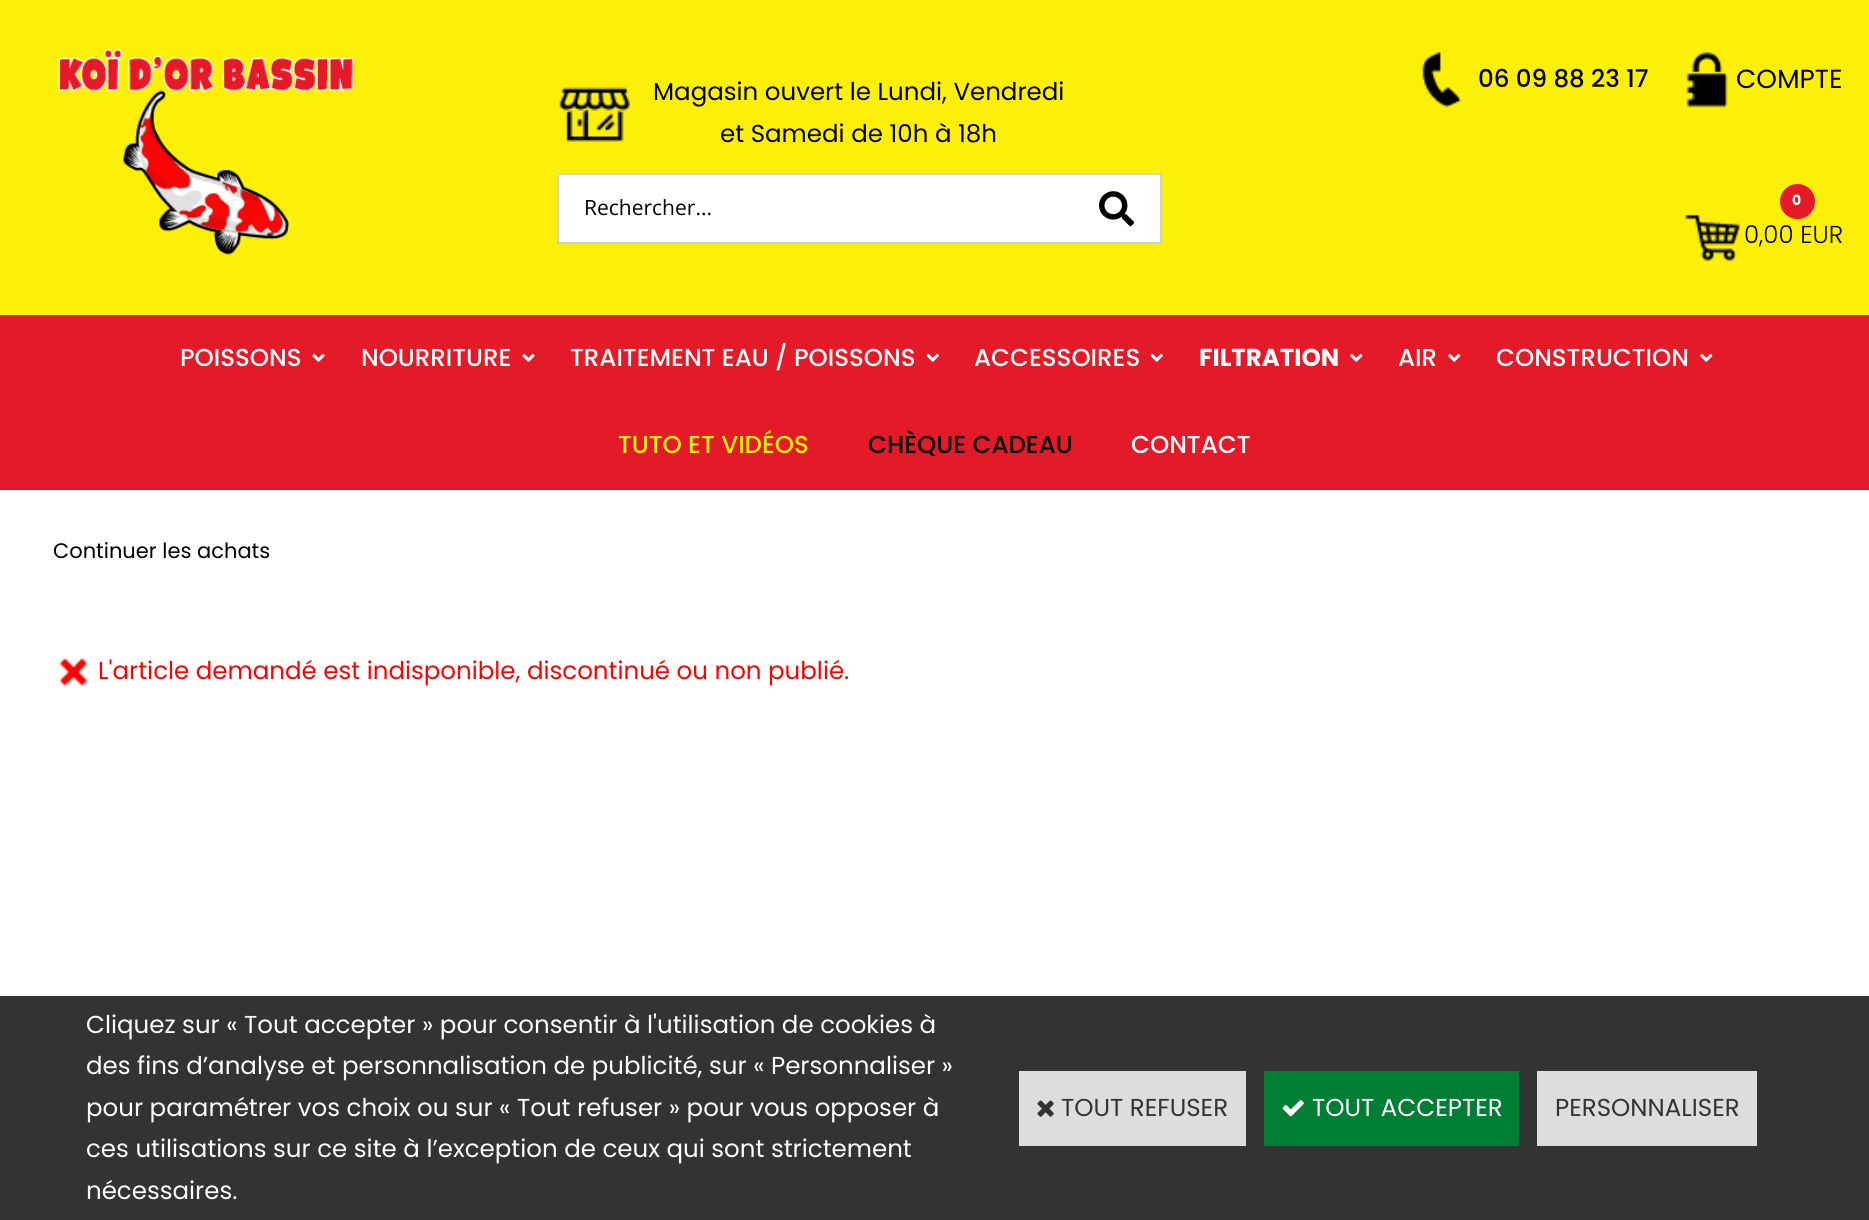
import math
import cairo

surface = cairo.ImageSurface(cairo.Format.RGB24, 1869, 1220)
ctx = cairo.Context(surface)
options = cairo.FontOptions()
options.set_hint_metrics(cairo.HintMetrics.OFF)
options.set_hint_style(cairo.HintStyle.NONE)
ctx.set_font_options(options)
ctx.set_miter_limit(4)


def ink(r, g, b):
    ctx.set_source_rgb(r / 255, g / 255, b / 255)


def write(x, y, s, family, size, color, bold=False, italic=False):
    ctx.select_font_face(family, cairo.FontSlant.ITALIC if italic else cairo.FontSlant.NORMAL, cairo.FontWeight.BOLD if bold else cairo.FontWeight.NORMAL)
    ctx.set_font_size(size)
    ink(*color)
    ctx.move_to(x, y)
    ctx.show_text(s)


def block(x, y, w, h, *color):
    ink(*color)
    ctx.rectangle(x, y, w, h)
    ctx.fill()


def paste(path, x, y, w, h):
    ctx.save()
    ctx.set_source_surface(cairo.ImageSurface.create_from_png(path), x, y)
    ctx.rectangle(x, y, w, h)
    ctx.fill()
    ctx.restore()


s1 = dict(family="Poppins", size=24.5, color=(0, 0, 0))
s2 = dict(family="Open Sans", size=21, color=(0, 0, 0))
s3 = dict(family="Poppins Medium", size=24.5, color=(0, 0, 0))
s4 = dict(family="Poppins", size=26.25, color=(0, 0, 0))
s5 = dict(family="Poppins", size=14, color=(255, 255, 255), bold=True)
s6 = dict(family="Poppins Light", size=24.5, color=(0, 0, 0))
s7 = dict(family="Poppins Medium", size=24.5, color=(255, 255, 255))
s8 = dict(family="Poppins", size=24.5, color=(255, 255, 255), bold=True)
s9 = dict(family="Poppins Medium", size=24.5, color=(253, 240, 8))
s10 = dict(family="Poppins", size=21, color=(0, 0, 0))
s11 = dict(family="Poppins", size=24.5, color=(255, 0, 0))
s12 = dict(family="Poppins", size=24.5, color=(255, 255, 255))
s13 = dict(family="Poppins", size=24.5, color=(51, 51, 51))

ink(255, 255, 255)
ctx.paint()
block(0, 0, 1869, 315, 253, 240, 8)
paste("pic1.png", 57, 48, 297, 207)
paste("pic2.png", 559, 87, 71, 55)
write(653, 100, "Magasin ouvert le Lundi, Vendredi", **s1)
write(720, 142, "et Samedi de 10h à 18h", **s1)
block(559, 175, 601, 67, 255, 255, 255)
block(557, 173, 605, 2, 208, 208, 208)
block(557, 242, 516, 2, 208, 208, 208)
block(557, 173, 2, 70, 208, 208, 208)
write(584, 215, "Rechercher...", **s2)
block(1160, 173, 2, 70, 208, 208, 208)
block(1073, 242, 89, 2, 208, 208, 208)
paste("pic3.png", 1099, 191, 35, 36)
paste("pic4.png", 1422, 52, 40, 56)
write(1478, 87, "06 09 88 23 17", **s3)
paste("pic5.png", 1686, 52, 42, 56)
write(1736, 88, "COMPTE", **s4)
paste("pic6.png", 1684, 214, 56, 48)
ink(228, 26, 40)
ctx.arc(1797.5, 201.5, 17.5, 0, 2 * math.pi)
ctx.fill()
write(1792, 205, "0", **s5)
write(1744, 243, "0,00 EUR", **s6)
block(0, 315, 1869, 175, 228, 26, 40)
write(180, 366, "POISSONS", **s7)
paste("pic7.png", 312, 354, 13, 8)
write(361, 366, "NOURRITURE", **s7)
paste("pic7.png", 522, 354, 13, 8)
write(570, 366, "TRAITEMENT EAU / POISSONS", **s7)
paste("pic8.png", 926, 354, 13, 8)
write(974, 366, "ACCESSOIRES", **s7)
paste("pic8.png", 1150, 354, 13, 8)
write(1199, 366, "FILTRATION", **s8)
paste("pic9.png", 1350, 354, 13, 8)
write(1398, 366, "AIR", **s7)
paste("pic9.png", 1448, 354, 13, 8)
write(1496, 366, "CONSTRUCTION", **s7)
paste("pic9.png", 1700, 354, 13, 8)
write(618, 453, "TUTO ET VIDÉOS", **s9)
write(868, 453, "CHÈQUE CADEAU", **s3)
write(1131, 453, "CONTACT", **s7)
write(53, 558, "Continuer les achats", **s10)
paste("pic10.png", 59, 657, 29, 30)
write(98, 679, "L'article demandé est indisponible, discontinué ou non publié.", **s11)
block(0, 996, 1869, 224, 51, 51, 51)
write(86, 1033, "Cliquez sur « Tout accepter » pour consentir à l'utilisation de cookies à", **s12)
write(86, 1074, "des fins d’analyse et personnalisation de publicité, sur « Personnaliser »", **s12)
write(86, 1116, "pour paramétrer vos choix ou sur « Tout refuser » pour vous opposer à", **s12)
write(86, 1157, "ces utilisations sur ce site à l’exception de ceux qui sont strictement", **s12)
write(86, 1199, "nécessaires.", **s12)
block(1019, 1071, 227, 75, 221, 221, 221)
paste("pic11.png", 1037, 1100, 17, 17)
write(1061, 1116, "TOUT REFUSER", **s13)
block(1264, 1071, 255, 75, 0, 126, 51)
paste("pic12.png", 1282, 1100, 22, 17)
write(1312, 1116, "TOUT ACCEPTER", **s12)
block(1537, 1071, 220, 75, 221, 221, 221)
write(1555, 1116, "PERSONNALISER", **s13)
surface.write_to_png("screenshot.png")
